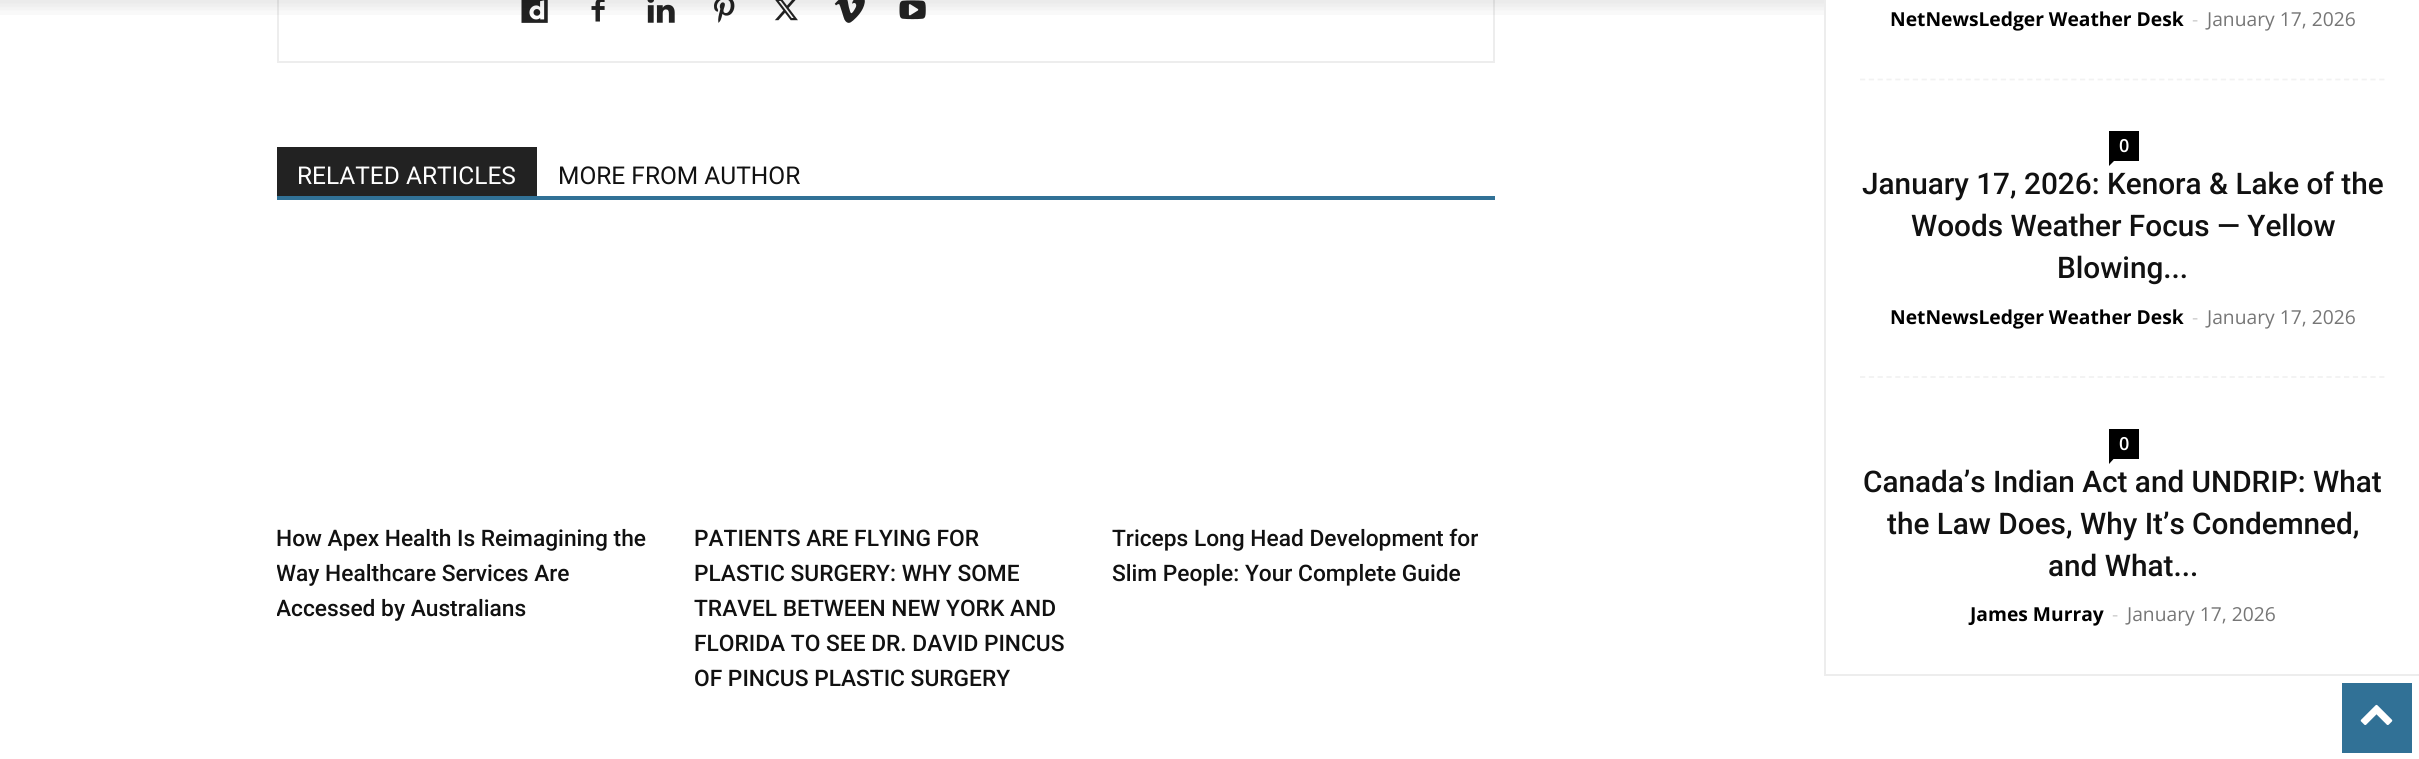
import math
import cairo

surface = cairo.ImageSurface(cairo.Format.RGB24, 2419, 759)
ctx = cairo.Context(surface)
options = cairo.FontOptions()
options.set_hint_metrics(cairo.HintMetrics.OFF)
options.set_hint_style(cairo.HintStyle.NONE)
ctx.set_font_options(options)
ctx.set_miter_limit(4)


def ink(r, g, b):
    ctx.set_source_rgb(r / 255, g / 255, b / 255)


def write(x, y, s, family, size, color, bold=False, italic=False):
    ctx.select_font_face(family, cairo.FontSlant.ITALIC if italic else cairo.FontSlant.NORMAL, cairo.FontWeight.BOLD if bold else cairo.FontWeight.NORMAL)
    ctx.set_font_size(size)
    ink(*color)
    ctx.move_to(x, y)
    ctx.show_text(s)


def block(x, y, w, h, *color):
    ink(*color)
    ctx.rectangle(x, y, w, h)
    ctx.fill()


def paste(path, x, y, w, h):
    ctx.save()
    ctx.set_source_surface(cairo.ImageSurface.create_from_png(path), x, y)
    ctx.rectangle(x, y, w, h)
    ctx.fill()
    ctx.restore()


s1 = dict(family="Roboto", size=24.5, color=(255, 255, 255))
s2 = dict(family="Roboto", size=24.5, color=(17, 17, 17))
s3 = dict(family="Roboto Medium", size=22.75, color=(17, 17, 17))
s4 = dict(family="Open Sans", size=19.25, color=(0, 0, 0), bold=True)
s5 = dict(family="Open Sans", size=19.25, color=(204, 204, 204))
s6 = dict(family="Open Sans", size=19.25, color=(118, 118, 118))
s7 = dict(family="Open Sans SemiBold", size=18, color=(255, 255, 255))
s8 = dict(family="Roboto Medium", size=29.75, color=(17, 17, 17))

ink(255, 255, 255)
ctx.paint()
ctx.rectangle(278, -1, 1216, 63)
ink(237, 237, 237)
ctx.stroke()
paste("pic2.png", 521, 0, 27, 23)
paste("pic3.png", 591, 0, 14, 22)
paste("pic4.png", 647, 0, 28, 23)
paste("pic5.png", 714, 0, 21, 23)
paste("pic6.png", 774, 0, 24, 21)
paste("pic7.png", 834, 0, 31, 23)
paste("pic8.png", 899, 0, 27, 20)
paste("pic1.png", 0, 0, 1824, 15)
block(277, 196, 1218, 4, 49, 113, 150)
block(277, 147, 260, 49, 34, 34, 34)
write(297, 184, "RELATED ARTICLES", **s1)
write(558, 184, "MORE FROM AUTHOR", **s2)
write(276, 546, "How Apex Health Is Reimagining the", **s3)
ctx.save()
ctx.rectangle(277, 147, 1218, 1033)
ctx.clip()
write(276, 581, "Way Healthcare Services Are", **s3)
write(276, 616, "Accessed by Australians", **s3)
ctx.restore()
write(694, 546, "PATIENTS ARE FLYING FOR", **s3)
write(694, 581, "PLASTIC SURGERY: WHY SOME", **s3)
write(694, 616, "TRAVEL BETWEEN NEW YORK AND", **s3)
write(694, 651, "FLORIDA TO SEE DR. DAVID PINCUS", **s3)
write(694, 686, "OF PINCUS PLASTIC SURGERY", **s3)
write(1112, 546, "Triceps Long Head Development for", **s3)
write(1112, 581, "Slim People: Your Complete Guide", **s3)
block(1824, 674, 595, 2, 237, 237, 237)
block(1824, 0, 2, 676, 237, 237, 237)
ctx.new_path()
ctx.move_to(1860, 79.5)
ctx.line_to(2385, 79.5)
ink(242, 242, 242)
ctx.set_line_width(1.8)
ctx.set_dash([5.25, 3.55])
ctx.stroke()
write(1890, 26, "NetNewsLedger Weather Desk", **s4)
write(2192, 26, "-", **s5)
write(2207, 26, "January 17, 2026", **s6)
ctx.new_path()
ctx.move_to(1860, 377)
ctx.line_to(2385, 377)
ink(242, 242, 242)
ctx.stroke()
block(2109, 131, 30, 30, 0, 0, 0)
write(2119, 152, "0", **s7)
ink(0, 0, 0)
ctx.new_path()
ctx.move_to(2109, 161)
ctx.line_to(2114, 161)
ctx.line_to(2109, 166)
ctx.close_path()
ctx.fill()
write(1862, 194, "January 17, 2026: Kenora & Lake of the", **s8)
write(1911, 236, "Woods Weather Focus — Yellow", **s8)
write(2057, 278, "Blowing...", **s8)
write(1890, 324, "NetNewsLedger Weather Desk", **s4)
write(2192, 324, "-", **s5)
write(2207, 324, "January 17, 2026", **s6)
block(2109, 429, 30, 30, 0, 0, 0)
write(2119, 450, "0", **s7)
ink(0, 0, 0)
ctx.new_path()
ctx.move_to(2109, 458.5)
ctx.line_to(2114, 458.5)
ctx.line_to(2109, 464)
ctx.close_path()
ctx.fill()
write(1863, 492, "Canada’s Indian Act and UNDRIP: What", **s8)
write(1887, 534, "the Law Does, Why It’s Condemned,", **s8)
write(2048, 576, "and What...", **s8)
write(1970, 621, "James Murray", **s4)
write(2112, 621, "-", **s5)
write(2127, 621, "January 17, 2026", **s6)
block(2342, 683, 70, 70, 49, 113, 150)
paste("pic9.png", 2360, 704, 33, 21)
surface.write_to_png("screenshot.png")
